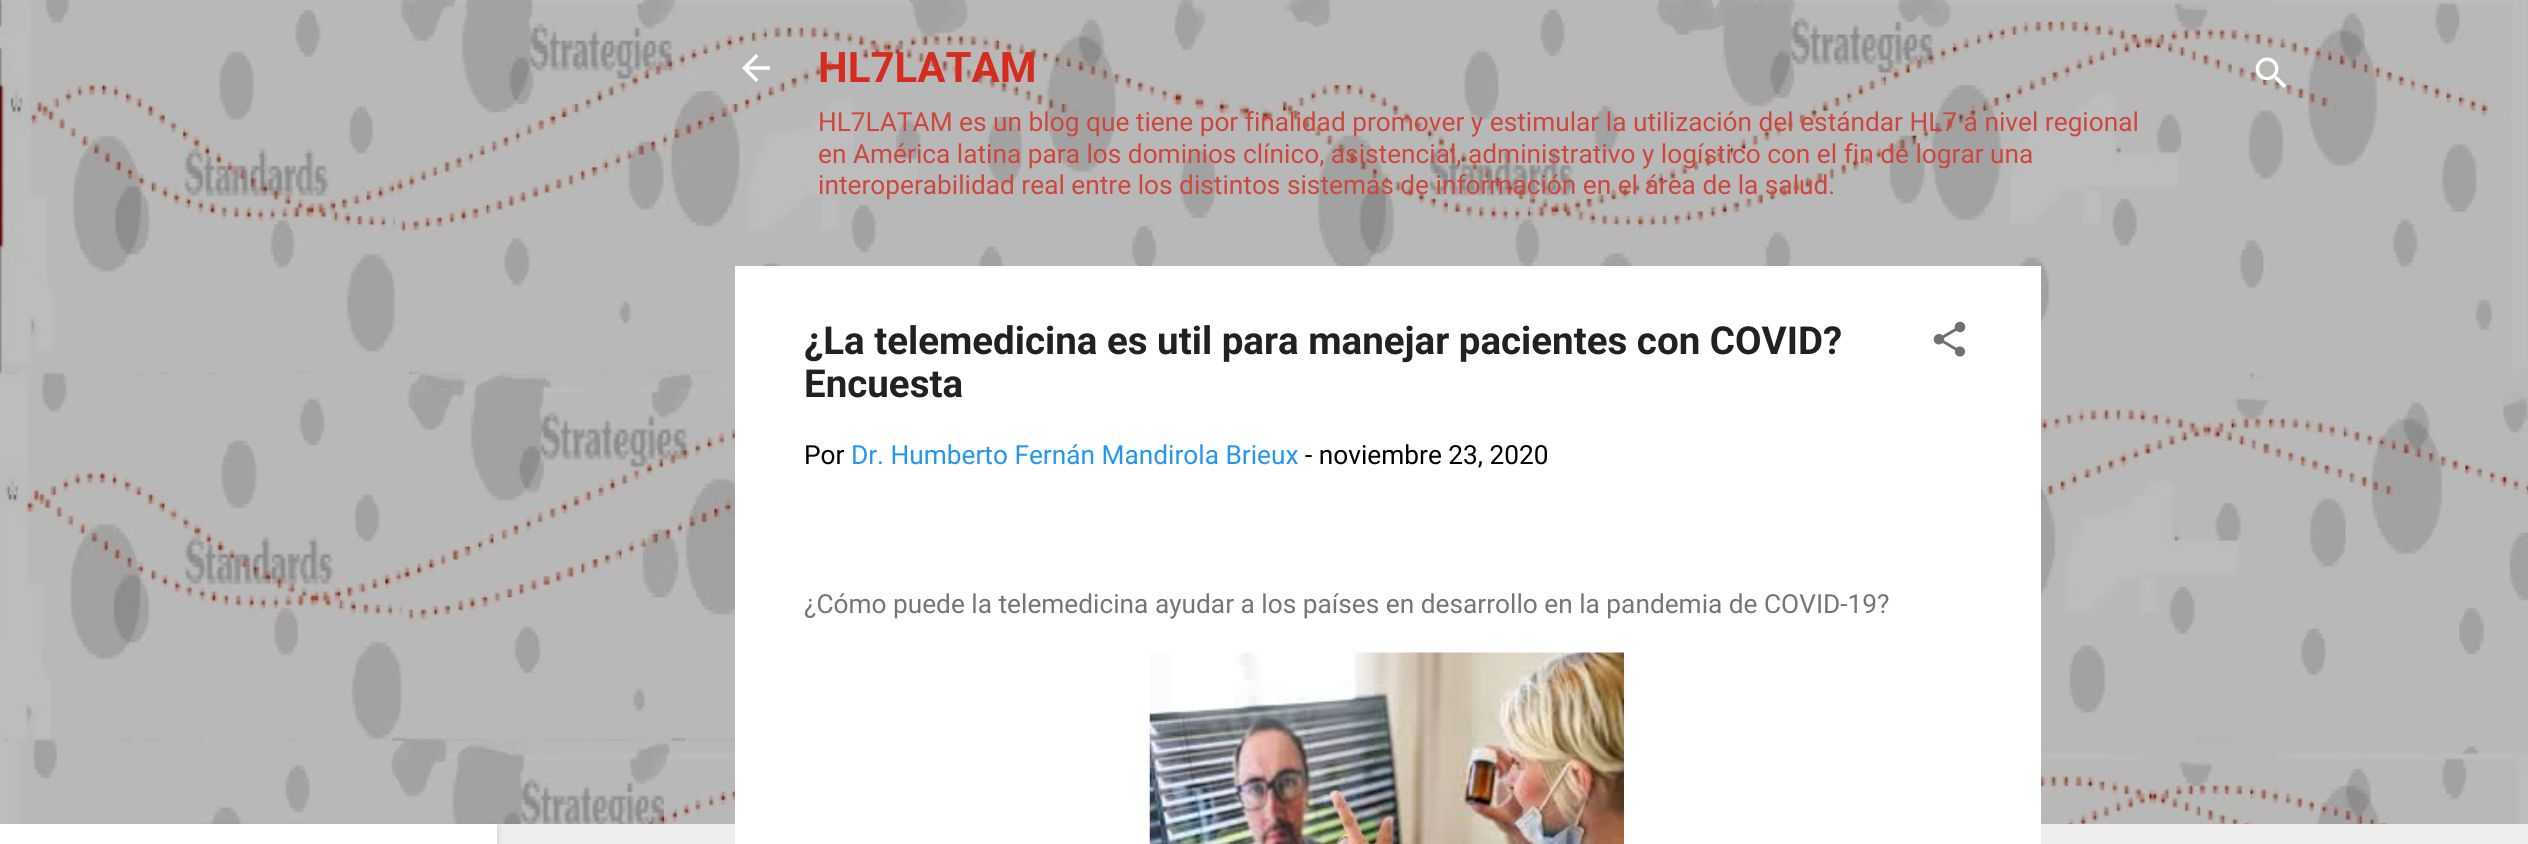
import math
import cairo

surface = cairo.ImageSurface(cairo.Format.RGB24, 2528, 844)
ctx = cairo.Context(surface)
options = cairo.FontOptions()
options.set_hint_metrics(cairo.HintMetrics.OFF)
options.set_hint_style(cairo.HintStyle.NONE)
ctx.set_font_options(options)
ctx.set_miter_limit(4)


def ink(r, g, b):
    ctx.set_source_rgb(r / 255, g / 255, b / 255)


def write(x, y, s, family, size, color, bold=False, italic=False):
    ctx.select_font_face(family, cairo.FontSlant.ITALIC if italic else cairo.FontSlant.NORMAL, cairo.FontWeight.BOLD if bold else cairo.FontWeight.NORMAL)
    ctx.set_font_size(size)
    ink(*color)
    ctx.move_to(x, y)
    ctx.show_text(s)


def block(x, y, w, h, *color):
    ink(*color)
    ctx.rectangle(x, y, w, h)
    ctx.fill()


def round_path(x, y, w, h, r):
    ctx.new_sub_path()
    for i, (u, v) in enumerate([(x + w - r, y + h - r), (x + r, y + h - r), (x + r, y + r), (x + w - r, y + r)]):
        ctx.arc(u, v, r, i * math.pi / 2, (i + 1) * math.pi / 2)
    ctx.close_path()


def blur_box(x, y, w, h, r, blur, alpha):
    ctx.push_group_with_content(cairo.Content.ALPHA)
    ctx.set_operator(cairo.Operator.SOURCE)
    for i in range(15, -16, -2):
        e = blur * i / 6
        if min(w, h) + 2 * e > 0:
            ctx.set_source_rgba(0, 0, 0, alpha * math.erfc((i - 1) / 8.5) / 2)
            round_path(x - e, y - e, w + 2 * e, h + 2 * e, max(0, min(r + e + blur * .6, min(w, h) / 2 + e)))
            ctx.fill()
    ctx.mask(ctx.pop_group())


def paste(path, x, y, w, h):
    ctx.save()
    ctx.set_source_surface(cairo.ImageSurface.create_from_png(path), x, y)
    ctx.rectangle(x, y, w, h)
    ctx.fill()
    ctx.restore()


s1 = dict(family="Roboto", size=42, color=(213, 44, 31), bold=True)
s2 = dict(family="Roboto", size=26.25, color=(206, 71, 61))
s3 = dict(family="Roboto", size=38.5, color=(33, 33, 33), bold=True)
s4 = dict(family="Roboto", size=26.25, color=(0, 0, 0))
s5 = dict(family="Roboto", size=26.25, color=(33, 150, 243))
s6 = dict(family="Roboto", size=26.25, color=(117, 117, 117))

ink(238, 238, 238)
ctx.paint()
paste("pic1.png", 0, 0, 2528, 824)
paste("pic2.png", 742, 54, 28, 28)
write(818, 82, "HL7LATAM", **s1)
write(818, 131, "HL7LATAM es un blog", **s2)
write(1086, 131, "que tiene por finalidad promover y estimular la utilización del estándar HL7 a nivel regional", **s2)
write(818, 163, "en América latina para los dominios clínico, asistencial, administrativo y logístico con el fin de lograr una", **s2)
write(818, 194, "interoperabilidad real entre los distintos sistemas de información en el área de la salud.", **s2)
paste("pic3.png", 2255, 57, 32, 31)
block(735, 266, 1306, 578, 255, 255, 255)
write(804, 354, "¿La telemedicina es util para manejar pacientes con COVID?", **s3)
write(804, 397, "Encuesta", **s3)
paste("pic4.png", 1933, 321, 33, 36)
write(804, 464, "Por", **s4)
write(851, 464, "Dr. Humberto Fernán Mandirola Brieux", **s5)
write(1305, 464, "- noviembre 23, 2020", **s4)
write(804, 613, "¿Cómo puede la telemedicina ayudar a los países en desarrollo en la pandemia de COVID-19?", **s6)
paste("pic5.png", 1149, 652, 475, 192)
ink(0, 0, 0)
blur_box(2, 826, 497, 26, 0, 2.5, 0.1)
block(0, 824, 497, 20, 255, 255, 255)
surface.write_to_png("screenshot.png")
